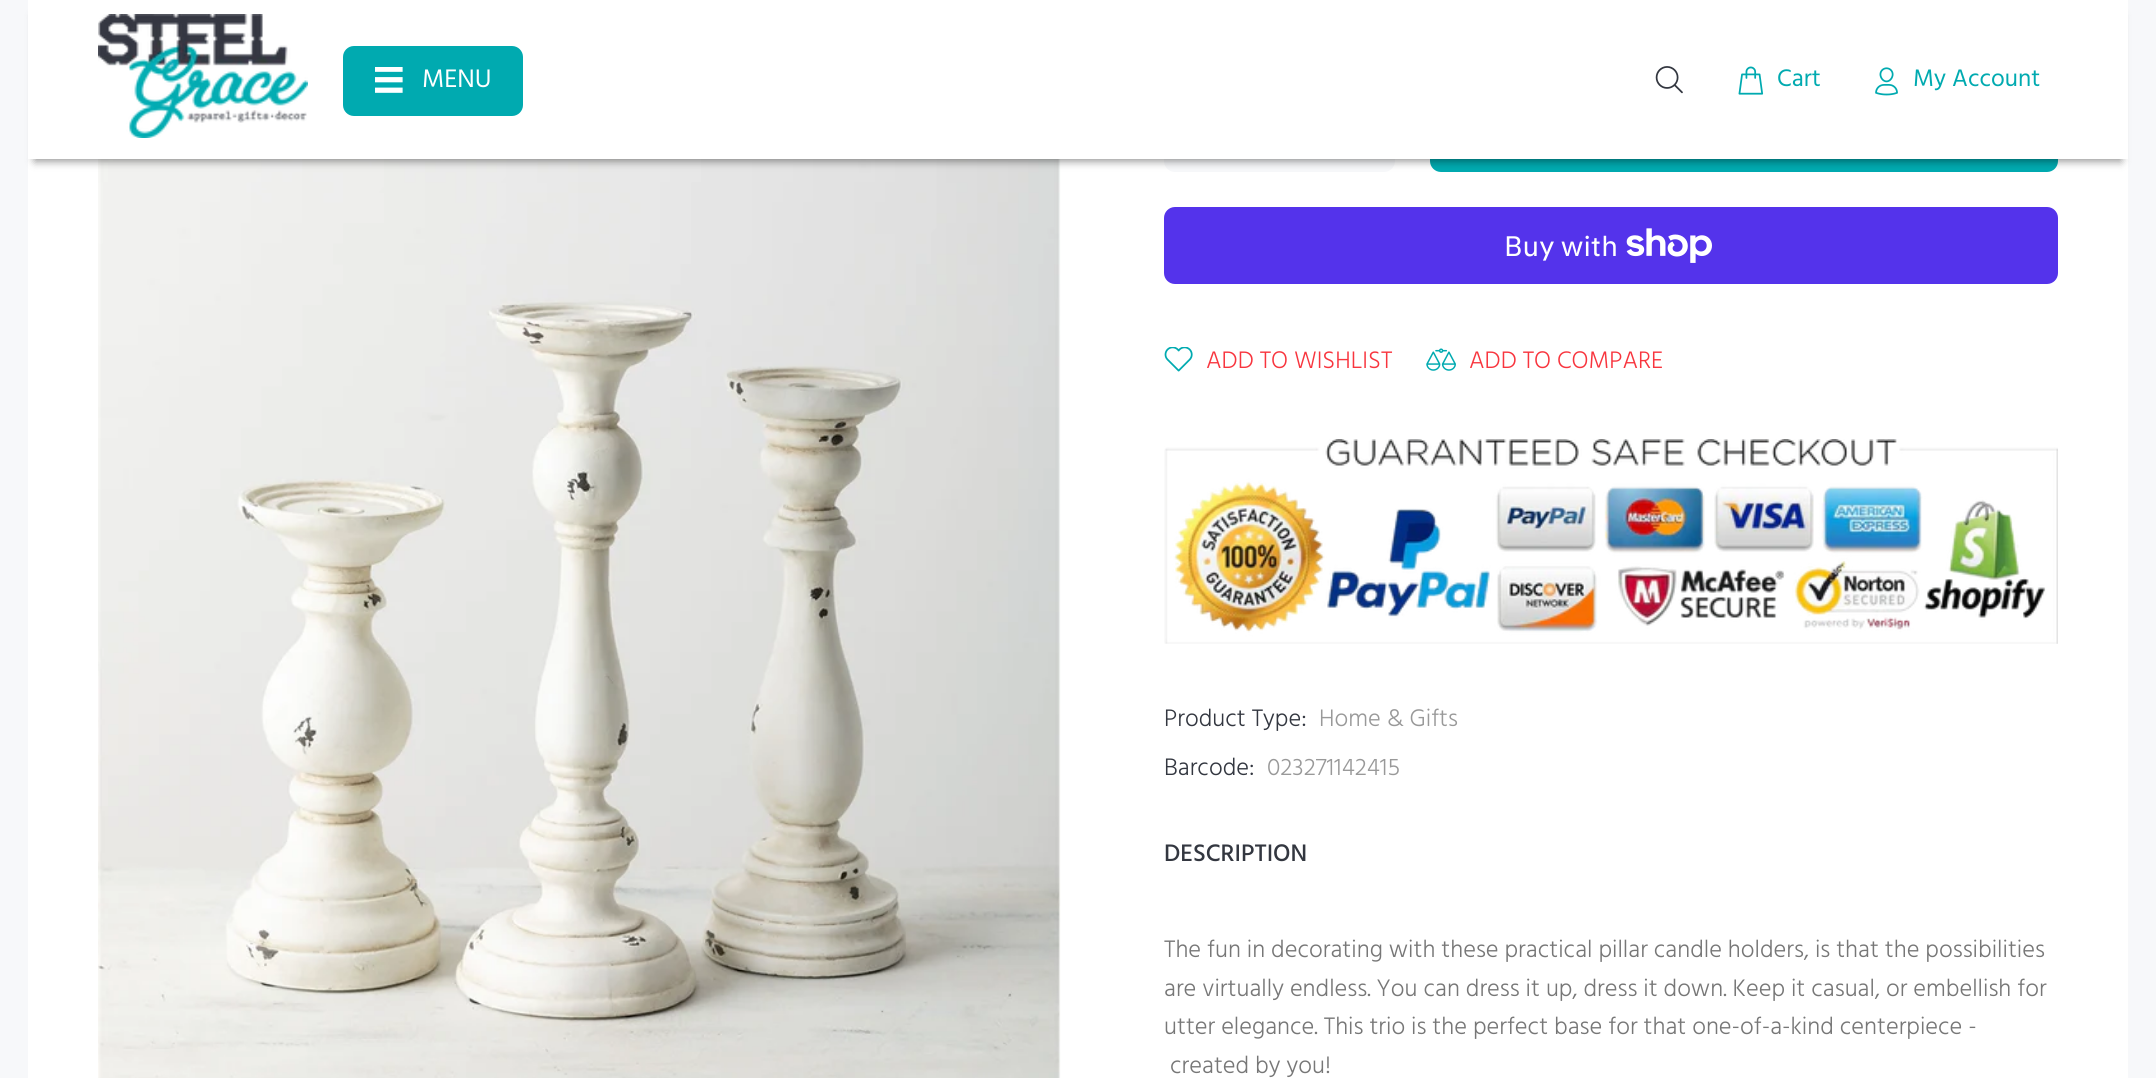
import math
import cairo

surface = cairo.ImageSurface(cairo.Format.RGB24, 2156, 1078)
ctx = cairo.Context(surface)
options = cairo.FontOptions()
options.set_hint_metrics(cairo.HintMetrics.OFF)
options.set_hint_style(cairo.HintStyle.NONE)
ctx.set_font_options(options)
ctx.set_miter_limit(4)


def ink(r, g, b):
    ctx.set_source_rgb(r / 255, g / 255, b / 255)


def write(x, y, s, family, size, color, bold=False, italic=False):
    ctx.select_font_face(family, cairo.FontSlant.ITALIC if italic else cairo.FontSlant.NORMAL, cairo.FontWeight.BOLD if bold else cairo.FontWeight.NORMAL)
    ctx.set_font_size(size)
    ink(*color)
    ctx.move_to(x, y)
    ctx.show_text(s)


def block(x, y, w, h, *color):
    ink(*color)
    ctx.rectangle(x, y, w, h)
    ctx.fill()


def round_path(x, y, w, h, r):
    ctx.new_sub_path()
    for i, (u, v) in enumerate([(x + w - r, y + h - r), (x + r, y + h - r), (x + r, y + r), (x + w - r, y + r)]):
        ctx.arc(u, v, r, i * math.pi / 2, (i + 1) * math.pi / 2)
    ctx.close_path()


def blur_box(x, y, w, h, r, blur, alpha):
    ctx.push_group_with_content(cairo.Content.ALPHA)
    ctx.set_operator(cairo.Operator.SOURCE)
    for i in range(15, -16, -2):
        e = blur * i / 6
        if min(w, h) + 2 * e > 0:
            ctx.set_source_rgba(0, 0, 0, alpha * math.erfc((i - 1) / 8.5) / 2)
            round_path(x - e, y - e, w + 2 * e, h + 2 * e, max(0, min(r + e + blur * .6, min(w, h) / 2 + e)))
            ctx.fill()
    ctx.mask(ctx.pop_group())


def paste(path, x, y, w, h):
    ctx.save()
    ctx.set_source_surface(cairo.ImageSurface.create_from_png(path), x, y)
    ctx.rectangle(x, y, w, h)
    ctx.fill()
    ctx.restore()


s1 = dict(family="Hind", size=26, color=(255, 255, 255))
s2 = dict(family="Hind", size=24.5, color=(0, 170, 176))
s3 = dict(family="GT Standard", size=28, color=(255, 255, 255))
s4 = dict(family="Hind Light", size=24.5, color=(248, 53, 62))
s5 = dict(family="Hind Light", size=24.5, color=(51, 55, 64))
s6 = dict(family="Hind Light", size=24.5, color=(153, 153, 153))
s7 = dict(family="Hind Medium", size=24.5, color=(51, 55, 64))
s8 = dict(family="Hind Light", size=24.5, color=(119, 119, 119))

ink(247, 248, 250)
ctx.paint()
block(28, 159, 2100, 919, 255, 255, 255)
paste("pic6.png", 98, 159, 963, 919)
ink(247, 248, 250)
round_path(1164, 84, 231, 88, 11)
ctx.fill()
ink(0, 170, 176)
round_path(1430, 84, 628, 88, 11)
ctx.fill()
ink(0, 0, 0)
blur_box(35, 16, 2086, 145, 0, 4.5, 0.45)
block(28, 0, 2100, 159, 255, 255, 255)
paste("pic1.png", 98, 14, 210, 124)
ink(0, 170, 176)
round_path(343, 46, 180, 70, 11)
ctx.fill()
paste("pic2.png", 375, 67, 28, 26)
write(422, 87, "MENU", **s1)
paste("pic3.png", 1655, 66, 28, 28)
paste("pic4.png", 1738, 66, 26, 29)
write(1777, 86, "Cart", **s2)
paste("pic5.png", 1875, 67, 23, 29)
write(1913, 86, "My Account", **s2)
ink(84, 51, 235)
round_path(1164, 207, 894, 77, 11)
ctx.fill()
write(1504, 256, "Buy with", **s3)
paste("pic7.png", 1626, 228, 86, 35)
paste("pic8.png", 1164, 347, 29, 25)
write(1206, 368, "ADD TO WISHLIST", **s4)
paste("pic9.png", 1426, 348, 30, 23)
write(1469, 368, "ADD TO COMPARE", **s4)
paste("pic10.png", 1164, 439, 894, 205)
write(1164, 726, "Product Type:", **s5)
write(1319, 726, "Home & Gifts", **s6)
write(1164, 775, "Barcode:", **s5)
write(1267, 775, "023271142415", **s6)
write(1164, 861, "DESCRIPTION", **s7)
write(1164, 957, "The fun in decorating with these practical pillar candle holders, is that the possibilities", **s8)
write(1164, 996, "are virtually endless. You can dress it up, dress it down. Keep it casual, or embellish for", **s8)
write(1164, 1034, "utter elegance. This trio is the perfect base for that one-of-a-kind centerpiece -", **s8)
write(1170, 1073, "created by you!", **s8)
surface.write_to_png("screenshot.png")
